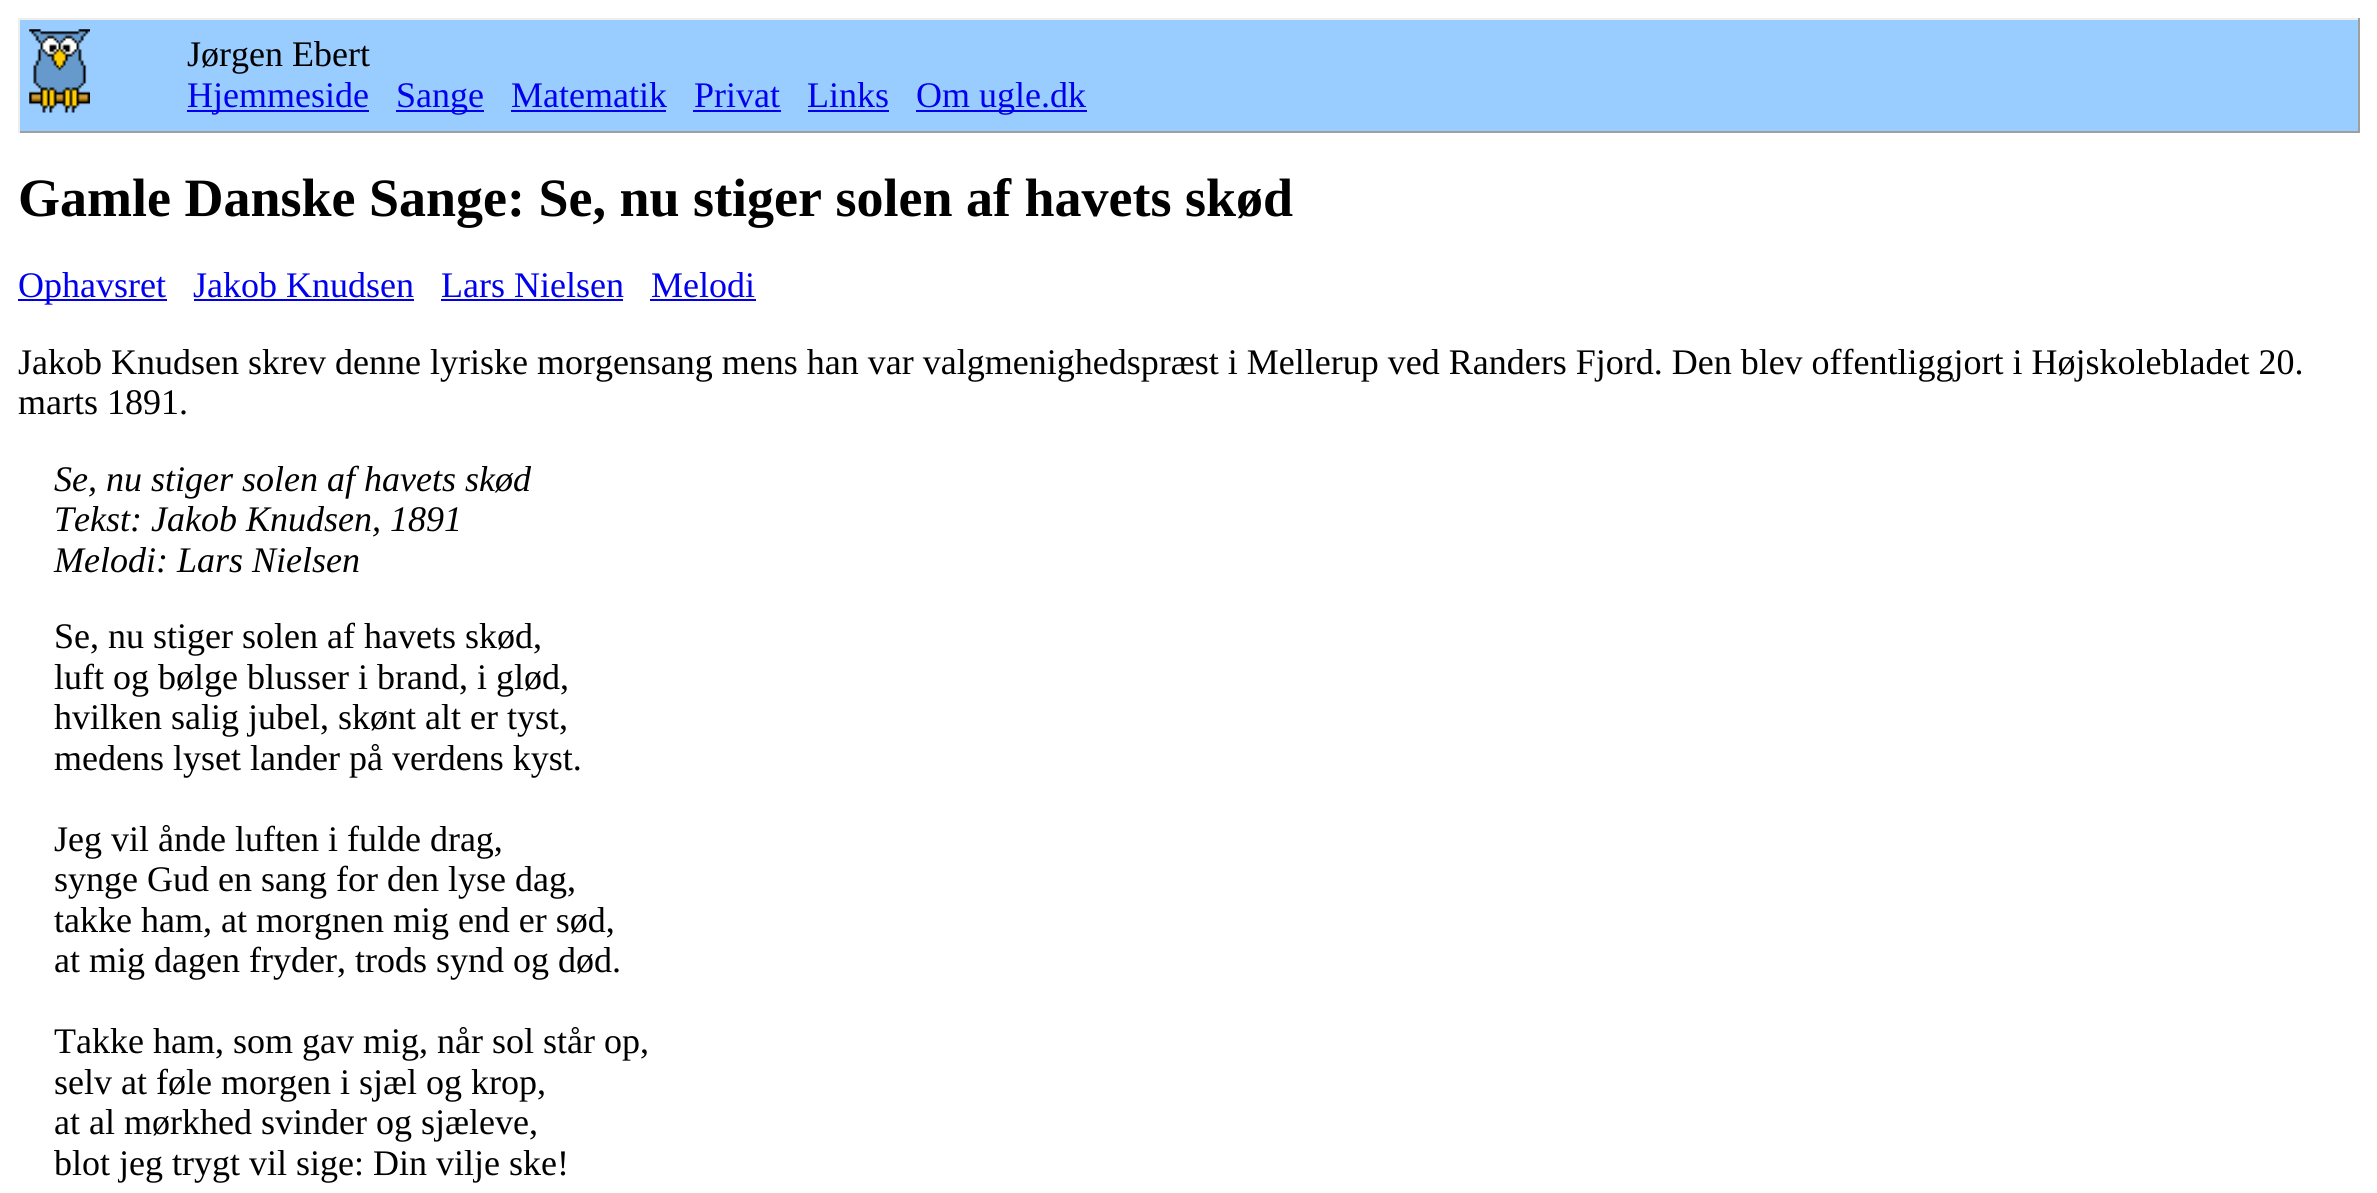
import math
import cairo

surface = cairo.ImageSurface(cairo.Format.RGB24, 2377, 1193)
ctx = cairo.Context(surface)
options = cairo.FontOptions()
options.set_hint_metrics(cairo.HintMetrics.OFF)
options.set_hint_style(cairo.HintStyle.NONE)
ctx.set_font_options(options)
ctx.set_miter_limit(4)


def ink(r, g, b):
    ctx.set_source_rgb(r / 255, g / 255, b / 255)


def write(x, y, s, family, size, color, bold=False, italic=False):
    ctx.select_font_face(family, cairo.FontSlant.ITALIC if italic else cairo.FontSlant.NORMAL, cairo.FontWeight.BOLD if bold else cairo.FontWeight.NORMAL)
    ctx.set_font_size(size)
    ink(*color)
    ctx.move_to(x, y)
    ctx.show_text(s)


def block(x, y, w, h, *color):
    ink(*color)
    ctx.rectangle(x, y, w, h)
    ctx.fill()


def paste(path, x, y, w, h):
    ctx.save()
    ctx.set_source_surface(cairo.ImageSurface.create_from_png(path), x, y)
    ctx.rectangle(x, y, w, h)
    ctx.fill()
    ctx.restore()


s1 = dict(family="Liberation Serif", size=36, color=(0, 0, 0))
s2 = dict(family="Liberation Serif", size=36, color=(0, 0, 238))
s3 = dict(family="Liberation Serif", size=54, color=(0, 0, 0), bold=True)
s4 = dict(family="Liberation Serif", size=36, color=(0, 0, 0), italic=True)

ink(255, 255, 255)
ctx.paint()
block(20, 20, 2338, 111, 153, 204, 255)
block(18, 18, 2342, 2, 238, 238, 238)
block(2358, 18, 2, 115, 159, 159, 159)
block(18, 131, 2342, 2, 159, 159, 159)
block(18, 18, 2, 115, 238, 238, 238)
paste("pic1.png", 29, 29, 61, 84)
write(187, 66, "Jørgen Ebert", **s1)
block(187, 110, 182, 2, 0, 0, 238)
write(187, 107, "Hjemmeside", **s2)
block(396, 110, 88, 2, 0, 0, 238)
write(396, 107, "Sange", **s2)
write(511, 107, "Matematik", **s2)
block(511, 110, 155, 2, 0, 0, 238)
write(694, 107, "Privat", **s2)
block(693, 110, 88, 2, 0, 0, 238)
write(807, 107, "Links", **s2)
block(808, 110, 81, 2, 0, 0, 238)
block(916, 110, 171, 2, 0, 0, 238)
write(916, 107, "Om ugle.dk", **s2)
write(18, 216, "Gamle Danske Sange: Se, nu stiger solen af havets skød", **s3)
block(18, 299, 149, 2, 0, 0, 238)
write(18, 297, "Ophavsret", **s2)
write(193, 297, "Jakob Knudsen", **s2)
block(194, 299, 220, 2, 0, 0, 238)
write(441, 297, "Lars Nielsen", **s2)
block(441, 299, 182, 2, 0, 0, 238)
write(651, 297, "Melodi", **s2)
block(650, 299, 106, 2, 0, 0, 238)
write(18, 374, "Jakob Knudsen skrev denne lyriske morgensang mens han var valgmenighedspræst i Mellerup ved Randers Fjord. Den blev offentliggjort i Højskolebladet 20.", **s1)
write(18, 414, "marts 1891.", **s1)
write(54, 491, "Se, nu stiger solen af havets skød", **s4)
write(54, 531, "Tekst: Jakob Knudsen, 1891", **s4)
write(54, 572, "Melodi: Lars Nielsen", **s4)
write(54, 648, "Se, nu stiger solen af havets skød,", **s1)
write(54, 689, "luft og bølge blusser i brand, i glød,", **s1)
write(54, 729, "hvilken salig jubel, skønt alt er tyst,", **s1)
write(54, 770, "medens lyset lander på verdens kyst.", **s1)
write(54, 851, "Jeg vil ånde luften i fulde drag,", **s1)
write(54, 891, "synge Gud en sang for den lyse dag,", **s1)
write(54, 932, "takke ham, at morgnen mig end er sød,", **s1)
write(54, 972, "at mig dagen fryder, trods synd og død.", **s1)
write(54, 1053, "Takke ham, som gav mig, når sol står op,", **s1)
write(54, 1094, "selv at føle morgen i sjæl og krop,", **s1)
write(54, 1134, "at al mørkhed svinder og sjæleve,", **s1)
write(54, 1175, "blot jeg trygt vil sige: Din vilje ske!", **s1)
surface.write_to_png("screenshot.png")
